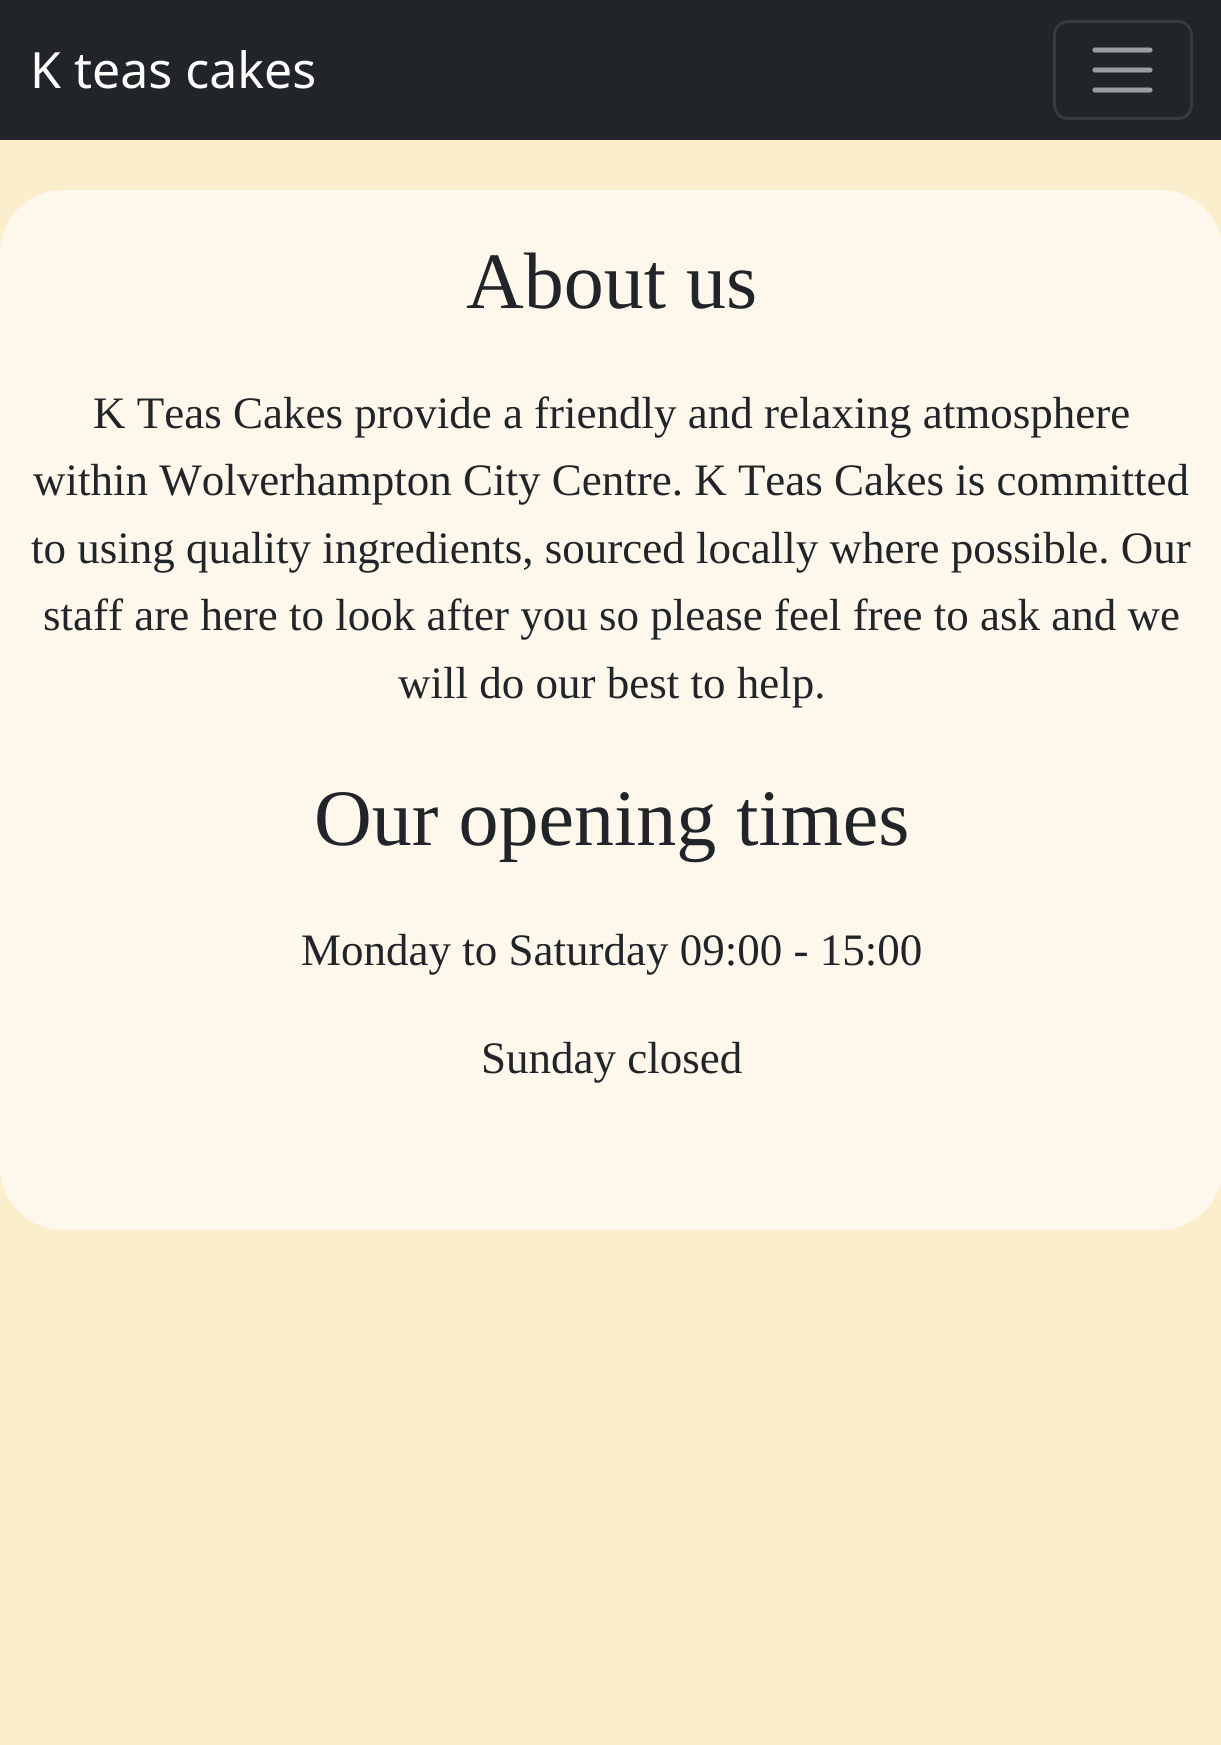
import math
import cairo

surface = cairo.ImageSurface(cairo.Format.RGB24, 1221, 1745)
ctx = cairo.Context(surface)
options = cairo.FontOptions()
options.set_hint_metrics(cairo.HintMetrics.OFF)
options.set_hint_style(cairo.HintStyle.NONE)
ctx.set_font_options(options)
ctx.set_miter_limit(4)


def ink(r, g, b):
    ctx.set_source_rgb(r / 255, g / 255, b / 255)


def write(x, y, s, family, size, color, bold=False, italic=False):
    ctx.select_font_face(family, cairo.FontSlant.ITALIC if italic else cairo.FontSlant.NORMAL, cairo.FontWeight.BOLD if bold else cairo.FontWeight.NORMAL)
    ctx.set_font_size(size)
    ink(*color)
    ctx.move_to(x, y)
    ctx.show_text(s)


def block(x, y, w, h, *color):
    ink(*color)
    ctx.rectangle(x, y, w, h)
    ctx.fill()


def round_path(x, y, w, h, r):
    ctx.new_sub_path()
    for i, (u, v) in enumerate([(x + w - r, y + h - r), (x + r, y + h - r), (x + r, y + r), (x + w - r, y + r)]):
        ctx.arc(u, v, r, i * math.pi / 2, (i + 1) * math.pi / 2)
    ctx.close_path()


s1 = dict(family="Noto Sans", size=50, color=(255, 255, 255))
s2 = dict(family="Liberation Serif", size=80, color=(33, 37, 41))
s3 = dict(family="Liberation Serif", size=45, color=(33, 37, 41))

ink(250, 238, 205)
ctx.paint()
block(0, 0, 1221, 140, 33, 37, 41)
write(30, 88, "K teas cakes", **s1)
round_path(1054.5, 21.5, 137, 97, 13.5)
ink(55, 59, 62)
ctx.set_line_width(3)
ctx.stroke()
ctx.new_path()
ctx.move_to(1095, 50)
ctx.line_to(1150, 50)
ctx.move_to(1095, 70)
ctx.line_to(1150, 70)
ctx.move_to(1095, 90)
ctx.line_to(1150, 90)
ink(155, 157, 159)
ctx.set_line_width(5)
ctx.set_line_cap(cairo.LineCap.ROUND)
ctx.stroke()
ink(253, 248, 235)
round_path(0, 190, 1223, 1040, 63)
ctx.fill()
write(466, 308, "About us", **s2)
write(93, 428, "K Teas Cakes provide a friendly and relaxing atmosphere", **s3)
write(33, 495, "within Wolverhampton City Centre. K Teas Cakes is committed", **s3)
write(31, 563, "to using quality ingredients, sourced locally where possible. Our", **s3)
write(43, 630, "staff are here to look after you so please feel free to ask and we", **s3)
write(398, 698, "will do our best to help.", **s3)
write(314, 845, "Our opening times", **s2)
write(301, 965, "Monday to Saturday 09:00 - 15:00", **s3)
write(481, 1073, "Sunday closed", **s3)
surface.write_to_png("screenshot.png")
